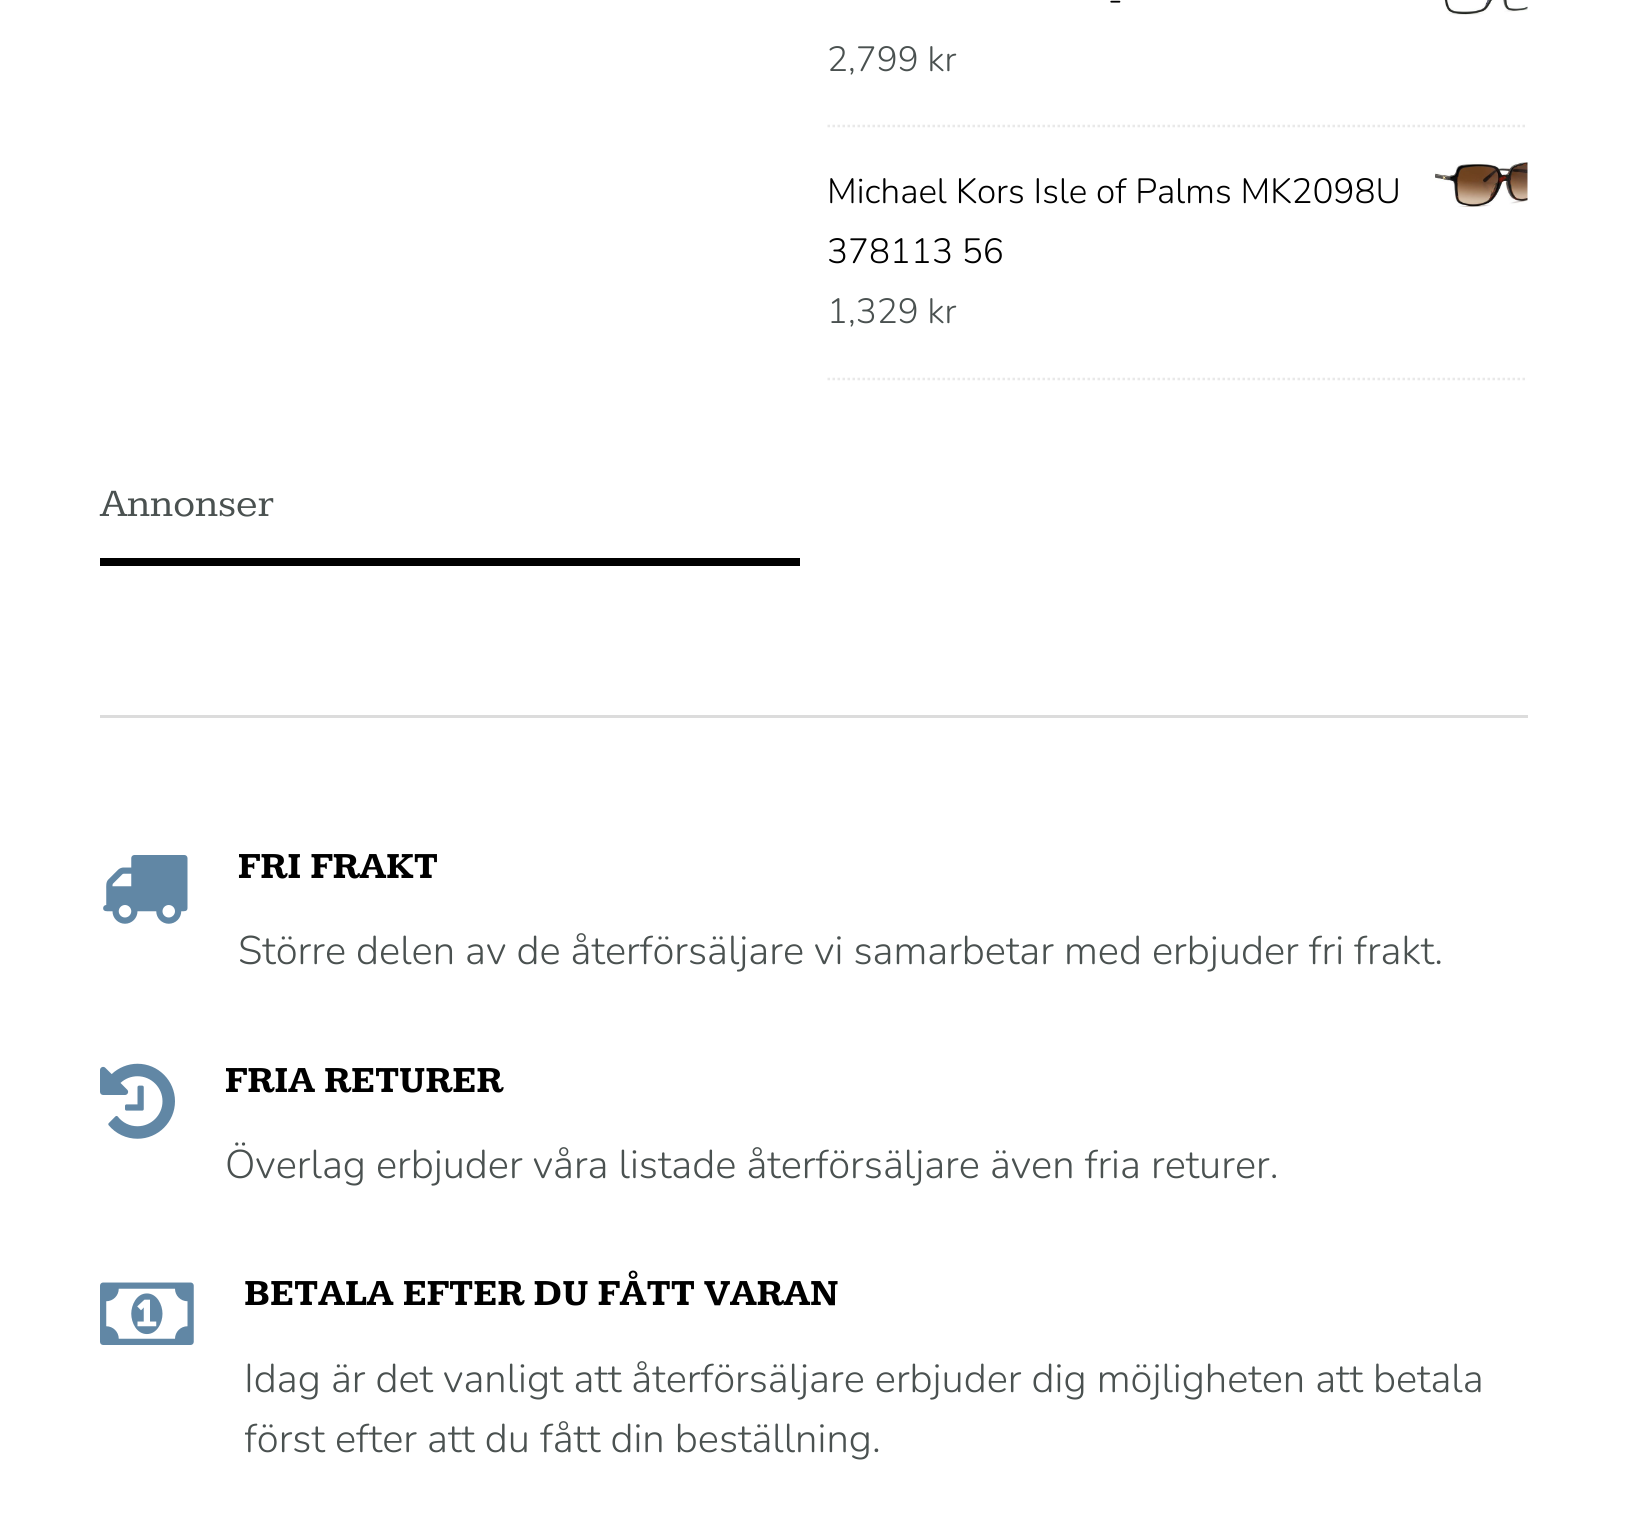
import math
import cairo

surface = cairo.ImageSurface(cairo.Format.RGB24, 1626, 1534)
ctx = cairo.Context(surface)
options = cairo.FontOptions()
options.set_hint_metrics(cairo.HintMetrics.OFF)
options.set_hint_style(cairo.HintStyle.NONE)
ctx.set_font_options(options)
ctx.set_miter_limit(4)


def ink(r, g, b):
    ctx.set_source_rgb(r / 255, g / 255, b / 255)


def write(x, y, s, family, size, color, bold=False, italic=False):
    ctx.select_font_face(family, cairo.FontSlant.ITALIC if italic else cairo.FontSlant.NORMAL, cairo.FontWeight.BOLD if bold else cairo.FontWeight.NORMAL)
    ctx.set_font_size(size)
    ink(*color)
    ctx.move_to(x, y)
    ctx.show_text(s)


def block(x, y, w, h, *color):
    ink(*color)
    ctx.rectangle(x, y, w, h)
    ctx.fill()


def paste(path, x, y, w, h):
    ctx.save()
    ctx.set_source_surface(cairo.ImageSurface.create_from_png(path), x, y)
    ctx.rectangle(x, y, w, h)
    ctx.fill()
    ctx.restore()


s1 = dict(family="Nunito Light", size=35, color=(0, 0, 0))
s2 = dict(family="Nunito Light", size=35, color=(74, 81, 80))
s3 = dict(family="Kameron", size=40, color=(74, 81, 80))
s4 = dict(family="Kameron", size=37.5, color=(0, 0, 0), bold=True)
s5 = dict(family="Nunito Light", size=40, color=(74, 81, 80))

ink(255, 255, 255)
ctx.paint()
ctx.new_path()
ctx.move_to(827.5, 126)
ctx.line_to(1527.5, 126)
ink(233, 233, 233)
ctx.set_line_width(2.5)
ctx.set_dash([2.5, 2.5])
ctx.stroke()
write(1108, 11, "-", **s1)
paste("pic1.png", 1444, 0, 84, 15)
write(827, 71, "2,799 kr", **s2)
ctx.new_path()
ctx.move_to(827.5, 379)
ctx.line_to(1527.5, 379)
ink(233, 233, 233)
ctx.stroke()
write(827, 203, "Michael Kors Isle of Palms MK2098U", **s1)
paste("pic2.png", 1435, 162, 93, 45)
write(827, 263, "378113 56", **s1)
write(827, 323, "1,329 kr", **s2)
block(100, 558, 700, 8, 0, 0, 0)
write(100, 516, "Annonser", **s3)
block(100, 715, 1428, 3, 220, 220, 220)
paste("pic3.png", 103, 855, 85, 69)
write(238, 878, "FRI FRAKT", **s4)
write(238, 964, "Större delen av de återförsäljare vi samarbetar med erbjuder fri frakt.", **s5)
paste("pic4.png", 100, 1063, 75, 76)
write(225, 1092, "FRIA RETURER", **s4)
write(225, 1178, "Överlag erbjuder våra listade återförsäljare även fria returer.", **s5)
paste("pic5.png", 100, 1282, 94, 63)
write(244, 1305, "BETALA EFTER DU FÅTT VARAN", **s4)
write(244, 1392, "Idag är det vanligt att återförsäljare erbjuder dig möjligheten att betala", **s5)
ctx.save()
ctx.rectangle(245, 1350, 1283, 120)
ctx.clip()
write(244, 1452, "först efter att du fått din beställning.", **s5)
ctx.restore()
surface.write_to_png("screenshot.png")
